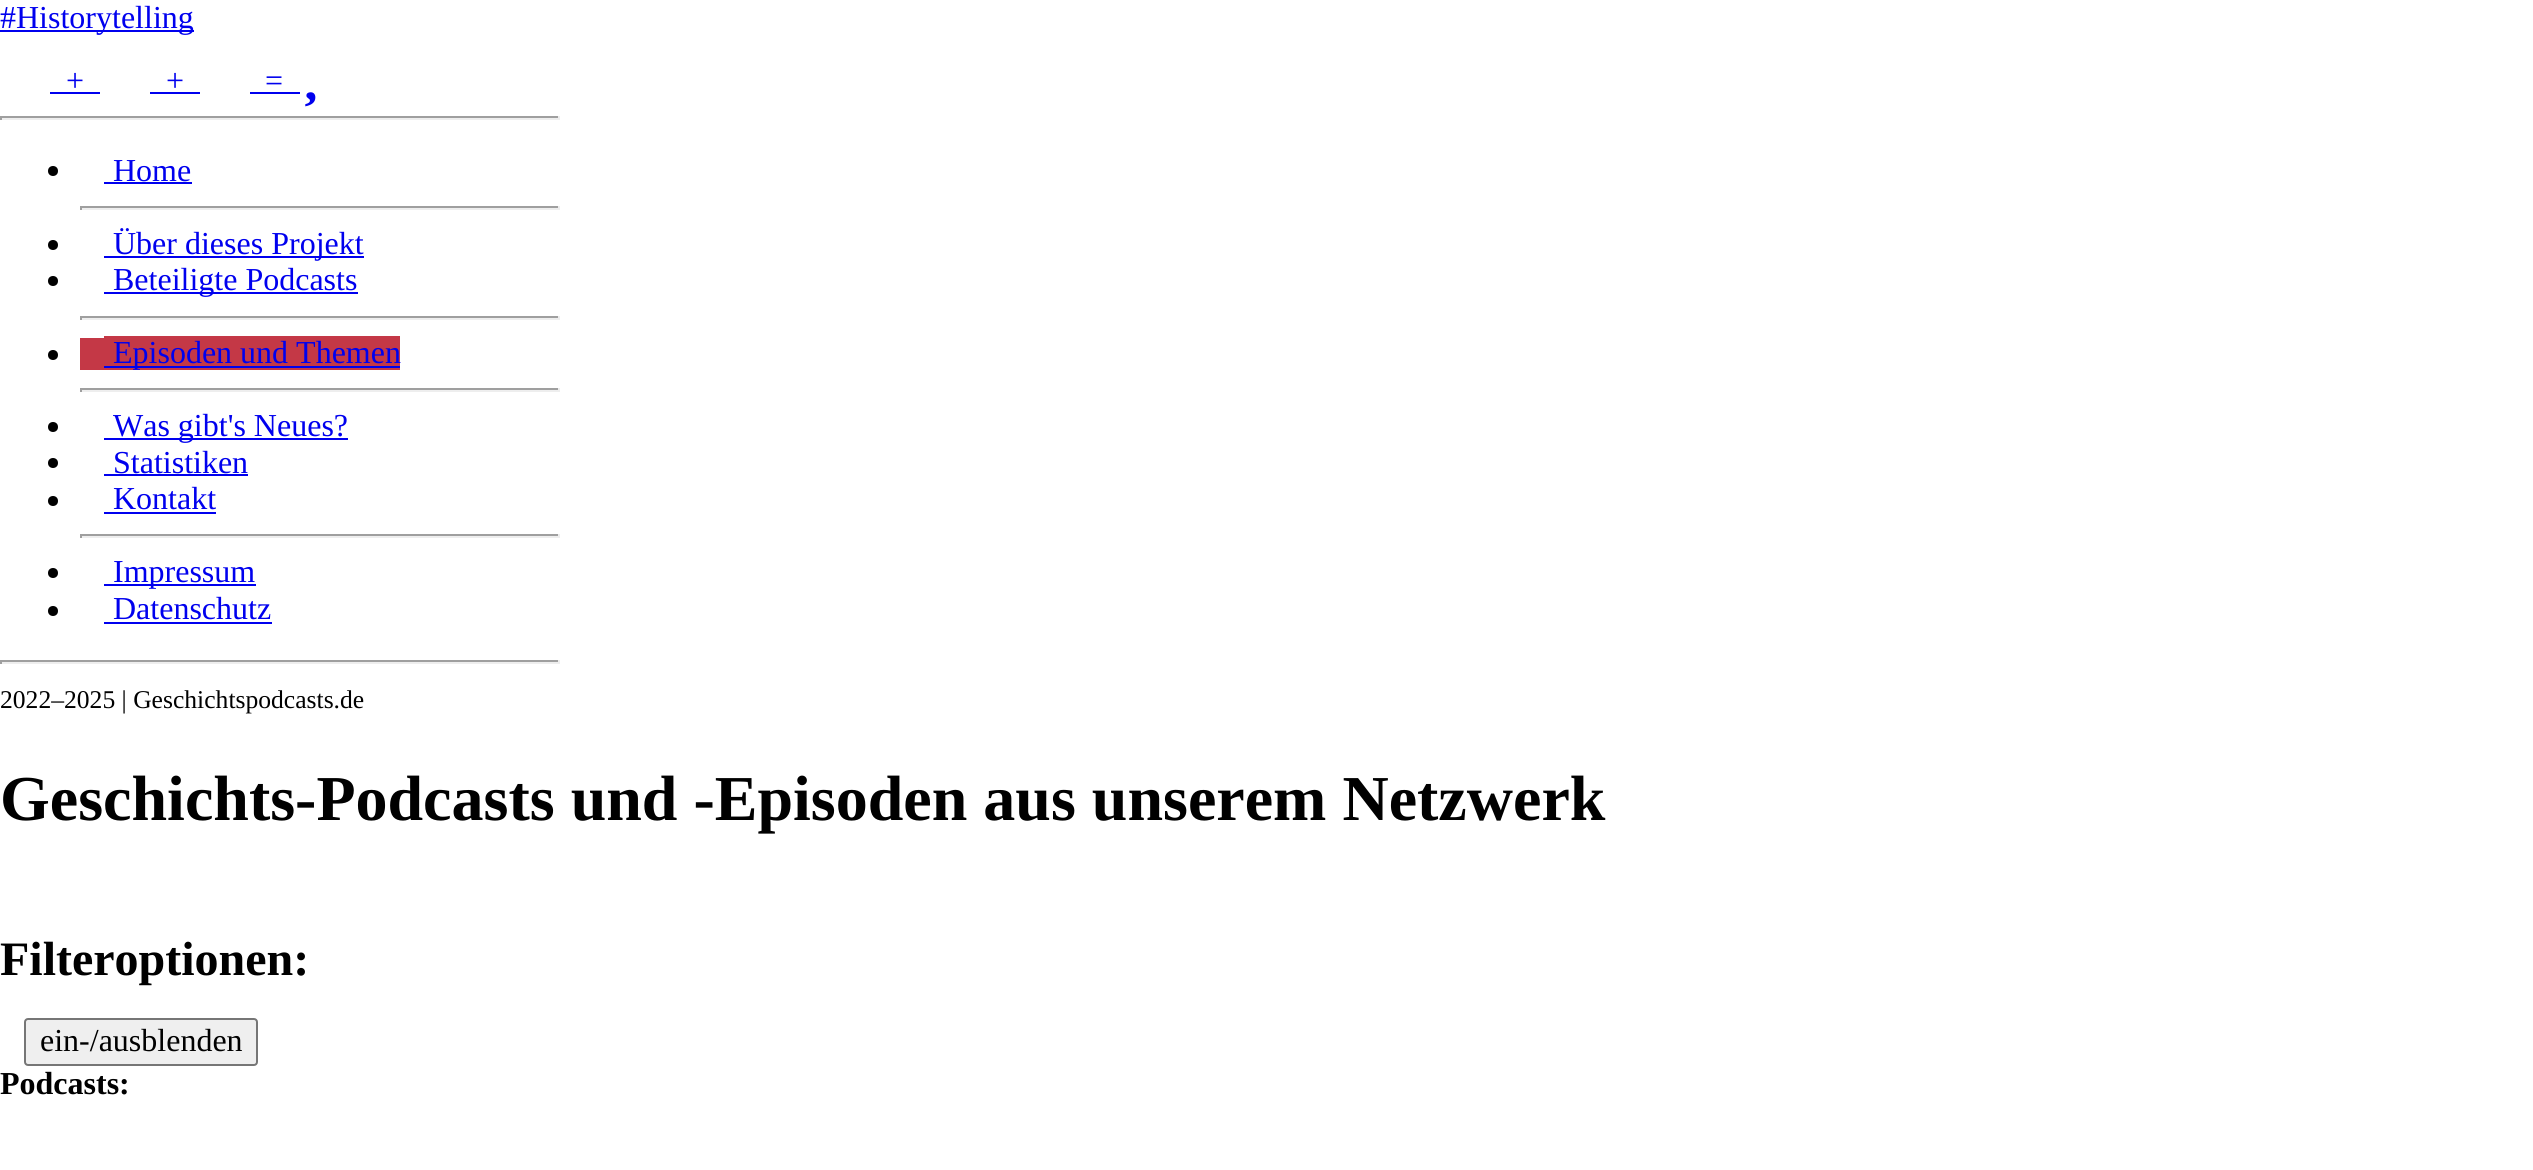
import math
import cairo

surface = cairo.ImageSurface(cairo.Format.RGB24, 2533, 1170)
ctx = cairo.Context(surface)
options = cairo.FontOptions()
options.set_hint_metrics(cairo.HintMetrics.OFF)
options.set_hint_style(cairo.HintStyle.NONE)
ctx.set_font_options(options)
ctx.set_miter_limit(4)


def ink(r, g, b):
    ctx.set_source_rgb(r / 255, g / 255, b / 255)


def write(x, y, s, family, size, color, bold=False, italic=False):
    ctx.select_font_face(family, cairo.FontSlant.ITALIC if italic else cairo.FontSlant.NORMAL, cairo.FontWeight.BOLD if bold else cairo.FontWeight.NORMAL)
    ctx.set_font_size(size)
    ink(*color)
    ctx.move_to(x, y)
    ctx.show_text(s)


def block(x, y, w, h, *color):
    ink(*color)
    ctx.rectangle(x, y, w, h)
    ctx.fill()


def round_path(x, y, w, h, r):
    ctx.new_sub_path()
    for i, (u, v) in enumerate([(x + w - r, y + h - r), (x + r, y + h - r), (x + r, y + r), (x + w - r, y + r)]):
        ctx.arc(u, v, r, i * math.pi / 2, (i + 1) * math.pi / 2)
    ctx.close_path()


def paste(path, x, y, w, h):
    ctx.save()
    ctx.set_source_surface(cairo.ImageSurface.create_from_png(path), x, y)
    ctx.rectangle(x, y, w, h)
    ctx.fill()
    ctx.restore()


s1 = dict(family="Liberation Serif", size=32, color=(0, 0, 238))
s2 = dict(family="Liberation Serif", size=25.6, color=(0, 0, 0))
s3 = dict(family="Liberation Serif", size=64, color=(0, 0, 0), bold=True)
s4 = dict(family="Liberation Serif", size=48, color=(0, 0, 0), bold=True)
s5 = dict(family="Liberation Serif", size=32, color=(0, 0, 0))
s6 = dict(family="Liberation Serif", size=32, color=(0, 0, 0), bold=True)

ink(255, 255, 255)
ctx.paint()
block(0, 30, 194, 2, 0, 0, 238)
write(0, 28, "#Historytelling", **s1)
write(66, 91, "+", **s1)
block(50, 92, 50, 2, 0, 0, 238)
write(166, 91, "+", **s1)
block(150, 92, 50, 2, 0, 0, 238)
write(265, 91, "=", **s1)
block(250, 92, 50, 2, 0, 0, 238)
paste("pic1.png", 305, 92, 11, 15)
block(0, 116, 560, 2, 159, 159, 159)
block(558, 116, 2, 4, 238, 238, 238)
block(0, 118, 560, 2, 238, 238, 238)
block(0, 116, 2, 4, 159, 159, 159)
ink(0, 0, 0)
ctx.arc(53, 171, 5, 0, 2 * math.pi)
ctx.fill()
write(113, 181, "Home", **s1)
block(104, 182, 88, 2, 0, 0, 238)
block(80, 206, 480, 2, 159, 159, 159)
block(558, 206, 2, 4, 238, 238, 238)
block(80, 208, 480, 2, 238, 238, 238)
block(80, 206, 2, 4, 159, 159, 159)
ink(0, 0, 0)
ctx.new_path()
ctx.arc(53, 245, 5, 0, 2 * math.pi)
ctx.fill()
block(104, 256, 260, 2, 0, 0, 238)
write(113, 254, "Über dieses Projekt", **s1)
ink(0, 0, 0)
ctx.new_path()
ctx.arc(53, 281, 5, 0, 2 * math.pi)
ctx.fill()
block(104, 292, 254, 2, 0, 0, 238)
write(113, 290, "Beteiligte Podcasts", **s1)
block(80, 316, 480, 2, 159, 159, 159)
block(558, 316, 2, 4, 238, 238, 238)
block(80, 318, 480, 2, 238, 238, 238)
block(80, 316, 2, 4, 159, 159, 159)
ink(0, 0, 0)
ctx.new_path()
ctx.arc(53, 355, 5, 0, 2 * math.pi)
ctx.fill()
block(104, 336, 296, 34, 196, 56, 70)
block(104, 366, 296, 2, 0, 0, 238)
write(113, 363, "Episoden und Themen", **s1)
block(80, 338, 24, 32, 196, 56, 70)
block(80, 388, 480, 2, 159, 159, 159)
block(558, 388, 2, 4, 238, 238, 238)
block(80, 390, 480, 2, 238, 238, 238)
block(80, 388, 2, 4, 159, 159, 159)
ink(0, 0, 0)
ctx.new_path()
ctx.arc(53, 427, 5, 0, 2 * math.pi)
ctx.fill()
block(104, 438, 244, 2, 0, 0, 238)
write(113, 436, "Was gibt's Neues?", **s1)
ink(0, 0, 0)
ctx.new_path()
ctx.arc(53, 463, 5, 0, 2 * math.pi)
ctx.fill()
write(113, 473, "Statistiken", **s1)
block(104, 474, 144, 2, 0, 0, 238)
ink(0, 0, 0)
ctx.new_path()
ctx.arc(53, 501, 5, 0, 2 * math.pi)
ctx.fill()
write(113, 509, "Kontakt", **s1)
block(104, 512, 112, 2, 0, 0, 238)
block(80, 534, 480, 2, 159, 159, 159)
block(558, 534, 2, 4, 238, 238, 238)
block(80, 536, 480, 2, 238, 238, 238)
block(80, 534, 2, 4, 159, 159, 159)
ink(0, 0, 0)
ctx.new_path()
ctx.arc(53, 573, 5, 0, 2 * math.pi)
ctx.fill()
block(104, 584, 152, 2, 0, 0, 238)
write(113, 582, "Impressum", **s1)
ink(0, 0, 0)
ctx.new_path()
ctx.arc(53, 611, 5, 0, 2 * math.pi)
ctx.fill()
write(113, 619, "Datenschutz", **s1)
block(104, 622, 168, 2, 0, 0, 238)
block(0, 660, 560, 2, 159, 159, 159)
block(558, 660, 2, 4, 238, 238, 238)
block(0, 662, 560, 2, 238, 238, 238)
block(0, 660, 2, 4, 159, 159, 159)
write(0, 708, "2022–2025 | Geschichtspodcasts.de", **s2)
write(0, 820, "Geschichts-Podcasts und -Episoden aus unserem Netzwerk", **s3)
write(0, 975, "Filteroptionen:", **s4)
ink(239, 239, 239)
round_path(25, 1019, 232, 46, 3)
ctx.fill_preserve()
ink(118, 118, 118)
ctx.stroke()
write(40, 1051, "ein-/ausblenden", **s5)
write(0, 1094, "Podcasts:", **s6)
surface.write_to_png("screenshot.png")
